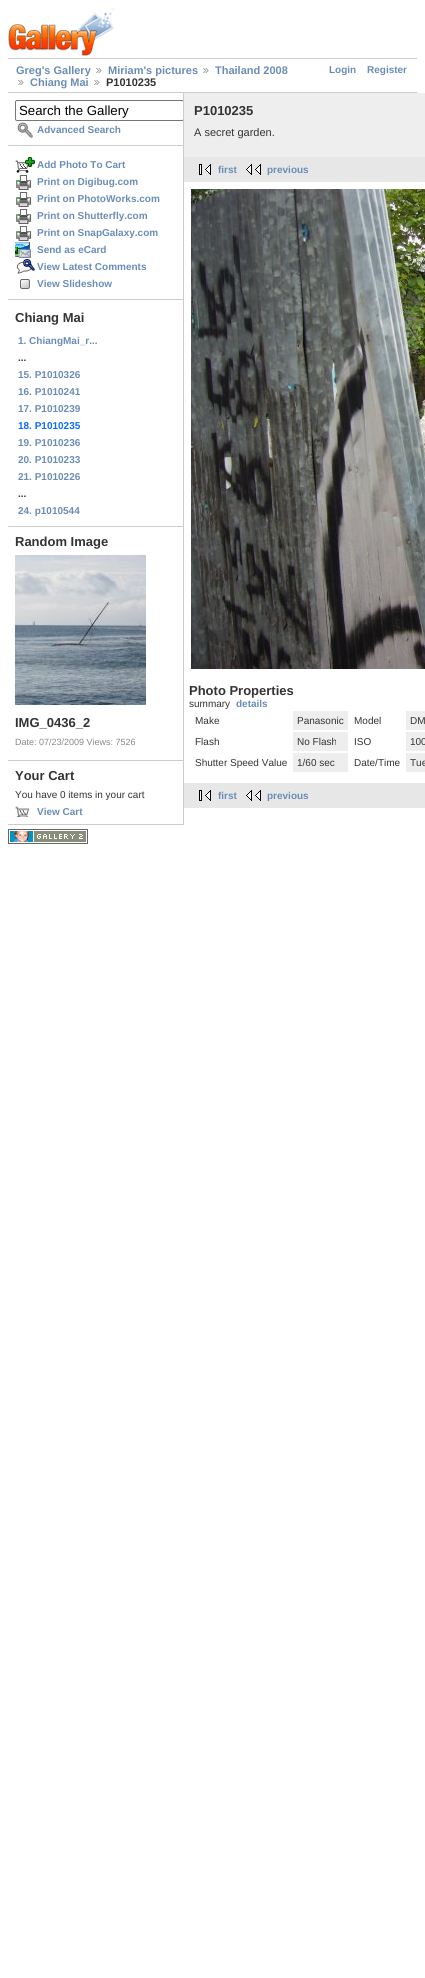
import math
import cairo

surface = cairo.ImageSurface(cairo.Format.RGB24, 425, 1978)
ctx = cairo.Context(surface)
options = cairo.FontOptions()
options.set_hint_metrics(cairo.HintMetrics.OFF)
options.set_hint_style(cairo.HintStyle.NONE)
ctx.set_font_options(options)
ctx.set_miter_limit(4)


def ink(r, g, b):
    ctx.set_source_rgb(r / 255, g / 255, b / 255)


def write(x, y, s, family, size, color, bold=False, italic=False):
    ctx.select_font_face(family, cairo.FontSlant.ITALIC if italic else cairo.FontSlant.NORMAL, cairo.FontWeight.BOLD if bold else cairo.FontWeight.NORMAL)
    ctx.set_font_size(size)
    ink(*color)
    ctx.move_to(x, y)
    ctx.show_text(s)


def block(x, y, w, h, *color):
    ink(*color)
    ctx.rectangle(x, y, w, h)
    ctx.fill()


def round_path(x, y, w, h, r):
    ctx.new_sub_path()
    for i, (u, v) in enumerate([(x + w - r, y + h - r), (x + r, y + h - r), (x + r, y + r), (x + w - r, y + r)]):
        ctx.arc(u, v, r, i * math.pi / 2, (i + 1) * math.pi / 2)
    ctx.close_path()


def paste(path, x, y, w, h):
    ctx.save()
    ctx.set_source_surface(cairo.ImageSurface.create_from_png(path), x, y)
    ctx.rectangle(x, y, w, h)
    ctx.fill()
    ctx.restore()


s1 = dict(family="Liberation Sans", size=11, color=(107, 140, 183), bold=True)
s2 = dict(family="Liberation Sans", size=11, color=(51, 51, 51), bold=True)
s3 = dict(family="Liberation Sans", size=10, color=(107, 140, 183), bold=True)
s4 = dict(family="Liberation Sans", size=13.25, color=(0, 0, 0))
s5 = dict(family="Liberation Sans", size=13, color=(51, 51, 51), bold=True)
s6 = dict(family="Liberation Sans", size=10, color=(51, 51, 51), bold=True)
s7 = dict(family="Liberation Sans", size=10, color=(11, 108, 255), bold=True)
s8 = dict(family="Liberation Sans", size=9, color=(136, 136, 136))
s9 = dict(family="Liberation Sans", size=10, color=(51, 51, 51))
s10 = dict(family="Liberation Sans", size=11, color=(51, 51, 51))

ink(255, 255, 255)
ctx.paint()
paste("pic1.png", 8, 8, 107, 48)
block(8, 58, 409, 1, 204, 204, 204)
block(8, 92, 409, 1, 204, 204, 204)
write(16, 74, "Greg's Gallery", **s1)
paste("pic2.png", 96, 68, 6, 5)
write(108, 74, "Miriam's pictures", **s1)
paste("pic2.png", 203, 68, 6, 5)
write(215, 74, "Thailand 2008", **s1)
paste("pic2.png", 18, 80, 6, 5)
write(30, 86, "Chiang Mai", **s1)
paste("pic2.png", 94, 80, 6, 5)
write(106, 86, "P1010235", **s2)
write(329, 73, "Login", **s3)
write(367, 73, "Register", **s3)
block(183, 93, 1, 732, 204, 204, 204)
block(8, 145, 175, 1, 204, 204, 204)
ctx.save()
ctx.rectangle(8, 93, 175, 732)
ctx.clip()
round_path(15.5, 100.5, 168, 20, 1.5)
ink(118, 118, 118)
ctx.set_line_width(1)
ctx.stroke()
ctx.restore()
write(19, 115, "Search the Gallery", **s4)
paste("pic3.png", 17, 122, 16, 16)
write(37, 133, "Advanced Search", **s3)
block(8, 299, 175, 1, 204, 204, 204)
paste("pic4.png", 15, 157, 20, 16)
write(37, 168, "Add Photo To Cart", **s3)
paste("pic5.png", 16, 175, 16, 15)
write(37, 185, "Print on Digibug.com", **s3)
paste("pic5.png", 16, 192, 16, 15)
write(37, 202, "Print on PhotoWorks.com", **s3)
paste("pic5.png", 16, 209, 16, 15)
write(37, 219, "Print on Shutterfly.com", **s3)
paste("pic5.png", 16, 226, 16, 15)
write(37, 236, "Print on SnapGalaxy.com", **s3)
paste("pic6.png", 15, 242, 16, 16)
write(37, 253, "Send as eCard", **s3)
paste("pic7.png", 16, 259, 19, 15)
write(37, 270, "View Latest Comments", **s3)
paste("pic8.png", 20, 279, 10, 10)
write(37, 287, "View Slideshow", **s3)
block(8, 526, 175, 1, 204, 204, 204)
write(15, 322, "Chiang Mai", **s5)
write(18, 344, "1. ChiangMai_r...", **s3)
write(18, 361, "...", **s6)
write(18, 378, "15. P1010326", **s3)
write(18, 395, "16. P1010241", **s3)
write(18, 412, "17. P1010239", **s3)
write(18, 429, "18. P1010235", **s7)
write(18, 446, "19. P1010236", **s3)
write(18, 463, "20. P1010233", **s3)
write(18, 480, "21. P1010226", **s3)
write(18, 497, "...", **s6)
write(18, 514, "24. p1010544", **s3)
block(8, 760, 175, 1, 204, 204, 204)
write(15, 546, "Random Image", **s5)
paste("pic9.png", 15, 555, 131, 150)
write(15, 727, "IMG_0436_2", **s5)
write(15, 745, "Date: 07/23/2009 Views: 7526", **s8)
block(8, 824, 175, 1, 204, 204, 204)
write(15, 780, "Your Cart", **s5)
write(15, 798, "You have 0 items in your cart", **s9)
paste("pic10.png", 15, 806, 14, 11)
write(37, 815, "View Cart", **s3)
block(184, 93, 241, 64, 238, 238, 238)
write(194, 115, "P1010235", **s5)
write(194, 136, "A secret garden.", **s10)
block(184, 157, 241, 25, 231, 231, 231)
paste("pic11.png", 199, 164, 12, 11)
write(218, 173, "first", **s3)
paste("pic12.png", 246, 164, 15, 11)
write(267, 173, "previous", **s3)
paste("pic13.png", 191, 189, 234, 480)
write(189, 695, "Photo Properties", **s5)
write(189, 707, "summary", **s9)
write(236, 707, "details", **s3)
write(195, 724, "Make", **s9)
block(293, 711, 55, 19, 238, 238, 238)
write(297, 724, "Panasonic", **s9)
write(354, 724, "Model", **s9)
block(406, 711, 19, 19, 238, 238, 238)
write(410, 724, "DM", **s9)
write(195, 745, "Flash", **s9)
block(293, 732, 55, 19, 238, 238, 238)
write(297, 745, "No Flash", **s9)
write(354, 745, "ISO", **s9)
block(406, 732, 19, 19, 238, 238, 238)
write(410, 745, "100", **s9)
write(195, 766, "Shutter Speed Value", **s9)
block(293, 753, 55, 19, 238, 238, 238)
write(297, 766, "1/60 sec", **s9)
write(354, 766, "Date/Time", **s9)
block(406, 753, 19, 19, 238, 238, 238)
write(410, 766, "Tue", **s9)
block(184, 783, 241, 25, 231, 231, 231)
paste("pic11.png", 199, 790, 12, 11)
write(218, 799, "first", **s3)
paste("pic12.png", 246, 790, 15, 11)
write(267, 799, "previous", **s3)
paste("pic14.png", 8, 829, 80, 15)
surface.write_to_png("screenshot.png")
